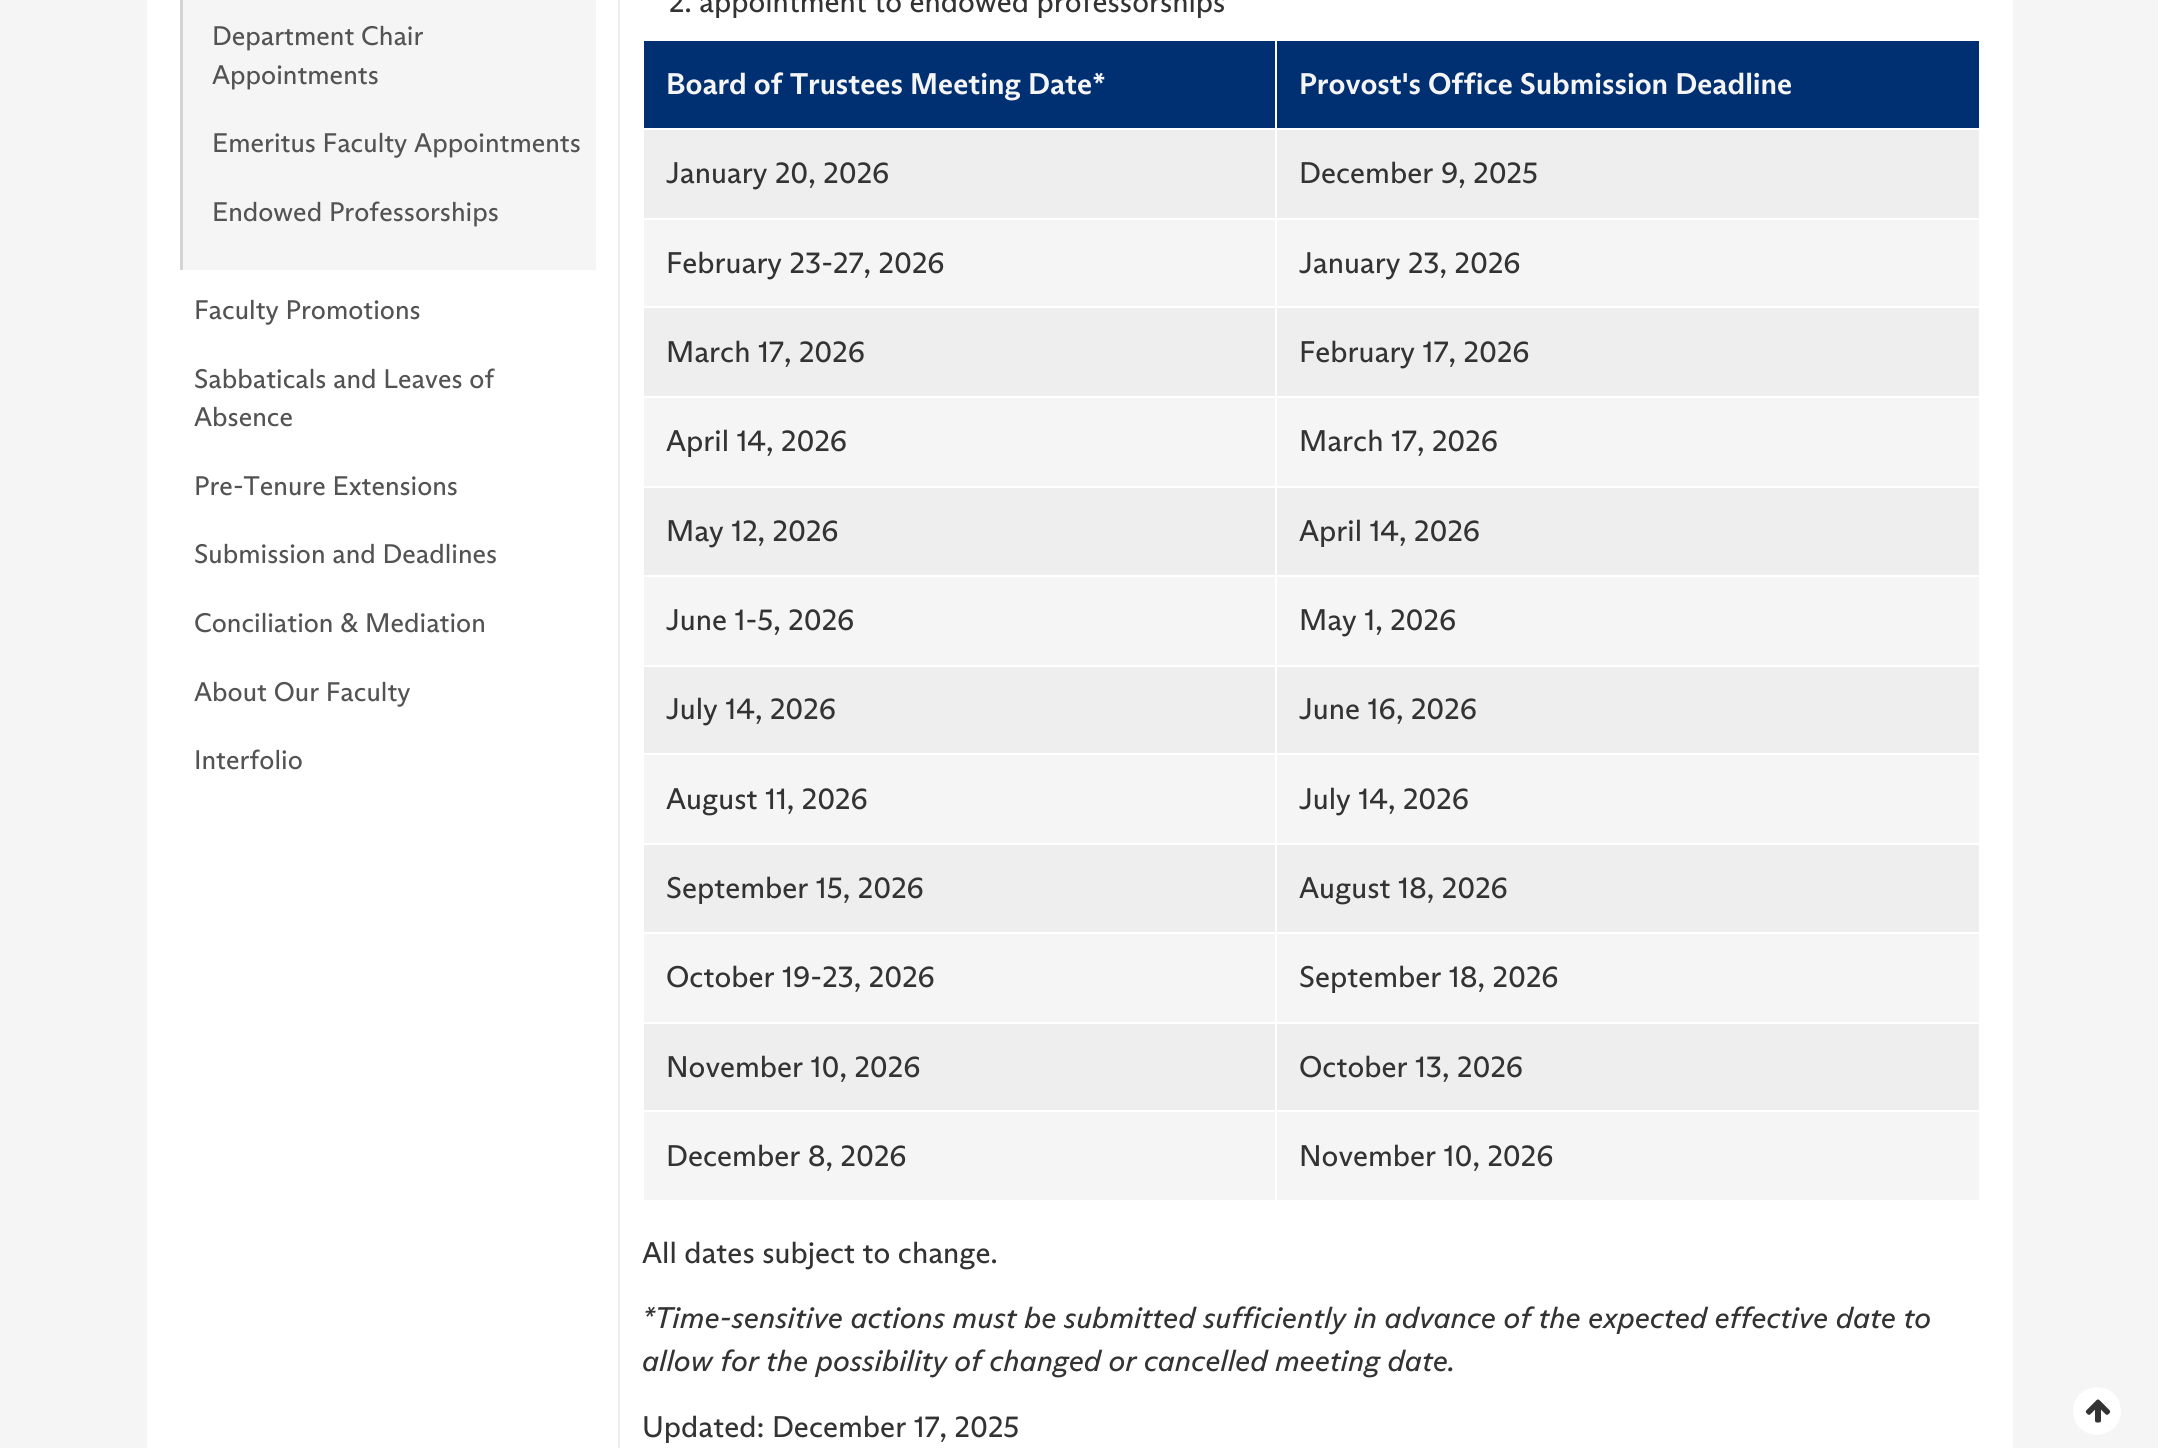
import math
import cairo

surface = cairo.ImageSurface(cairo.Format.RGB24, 2158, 1448)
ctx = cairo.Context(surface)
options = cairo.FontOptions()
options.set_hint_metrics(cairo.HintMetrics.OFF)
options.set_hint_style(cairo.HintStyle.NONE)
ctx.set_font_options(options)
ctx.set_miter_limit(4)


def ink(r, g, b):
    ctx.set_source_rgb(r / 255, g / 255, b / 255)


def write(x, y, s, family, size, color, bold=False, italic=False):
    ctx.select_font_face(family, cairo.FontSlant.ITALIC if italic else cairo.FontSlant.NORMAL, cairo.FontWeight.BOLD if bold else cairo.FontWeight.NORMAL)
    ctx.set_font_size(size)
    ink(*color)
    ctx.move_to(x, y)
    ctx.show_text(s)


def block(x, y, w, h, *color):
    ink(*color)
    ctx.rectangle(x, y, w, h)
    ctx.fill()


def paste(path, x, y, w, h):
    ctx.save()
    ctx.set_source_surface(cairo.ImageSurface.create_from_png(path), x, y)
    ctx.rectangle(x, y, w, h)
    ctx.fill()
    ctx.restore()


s1 = dict(family="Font", size=27, color=(83, 83, 83))
s2 = dict(family="Font", size=30, color=(51, 51, 51))
s3 = dict(family="Font", size=30, color=(245, 245, 245), bold=True)
s4 = dict(family="Font", size=30, color=(51, 51, 51), italic=True)

ink(245, 245, 245)
ctx.paint()
block(147, 0, 1866, 1448, 255, 255, 255)
block(183, 0, 413, 270, 245, 245, 245)
block(180, 0, 3, 270, 211, 211, 211)
write(212, 45, "Department Chair", **s1)
write(212, 84, "Appointments", **s1)
write(212, 152, "Emeritus Faculty Appointments", **s1)
write(212, 221, "Endowed Professorships", **s1)
write(194, 319, "Faculty Promotions", **s1)
write(194, 388, "Sabbaticals and Leaves of", **s1)
write(194, 426, "Absence", **s1)
write(194, 495, "Pre-Tenure Extensions", **s1)
write(194, 563, "Submission and Deadlines", **s1)
write(194, 632, "Conciliation & Mediation", **s1)
write(194, 701, "About Our Faculty", **s1)
write(194, 769, "Interfolio", **s1)
block(618, 0, 2, 1448, 238, 238, 238)
write(669, 12, "2. appointment to endowed professorships", **s2)
block(644, 41, 631, 87, 0, 48, 113)
write(666, 94, "Board of Trustees Meeting Date*", **s3)
block(1277, 41, 702, 87, 0, 48, 113)
write(1299, 94, "Provost's Office Submission Deadline", **s3)
block(644, 130, 1335, 88, 238, 238, 238)
write(666, 183, "January 20, 2026", **s2)
write(1299, 183, "December 9, 2025", **s2)
block(644, 220, 1335, 86, 245, 245, 245)
write(666, 273, "February 23-27, 2026", **s2)
write(1299, 273, "January 23, 2026", **s2)
block(644, 308, 1335, 88, 238, 238, 238)
write(666, 362, "March 17, 2026", **s2)
write(1299, 362, "February 17, 2026", **s2)
block(644, 398, 1335, 88, 245, 245, 245)
write(666, 451, "April 14, 2026", **s2)
write(1299, 451, "March 17, 2026", **s2)
block(644, 488, 1335, 87, 238, 238, 238)
write(666, 541, "May 12, 2026", **s2)
write(1299, 541, "April 14, 2026", **s2)
block(644, 577, 1335, 88, 245, 245, 245)
write(666, 630, "June 1-5, 2026", **s2)
write(1299, 630, "May 1, 2026", **s2)
block(644, 667, 1335, 86, 238, 238, 238)
write(666, 719, "July 14, 2026", **s2)
write(1299, 719, "June 16, 2026", **s2)
block(644, 755, 1335, 88, 245, 245, 245)
write(666, 809, "August 11, 2026", **s2)
write(1299, 809, "July 14, 2026", **s2)
block(644, 845, 1335, 87, 238, 238, 238)
write(666, 898, "September 15, 2026", **s2)
write(1299, 898, "August 18, 2026", **s2)
block(644, 934, 1335, 88, 245, 245, 245)
write(666, 987, "October 19-23, 2026", **s2)
write(1299, 987, "September 18, 2026", **s2)
block(644, 1024, 1335, 86, 238, 238, 238)
write(666, 1077, "November 10, 2026", **s2)
write(1299, 1077, "October 13, 2026", **s2)
block(644, 1112, 1335, 88, 245, 245, 245)
write(666, 1166, "December 8, 2026", **s2)
block(1275, 128, 2, 1074, 255, 255, 255)
write(1299, 1166, "November 10, 2026", **s2)
write(642, 1263, "All dates subject to change.", **s2)
write(642, 1328, "*Time-sensitive actions must be submitted sufficiently in advance of the expected effective date to", **s4)
write(642, 1371, "allow for the possibility of changed or cancelled meeting date.", **s4)
write(642, 1437, "Updated: December 17, 2025", **s2)
ink(255, 255, 255)
ctx.new_path()
ctx.move_to(2118, 1399)
ctx.curve_to(2120, 1403, 2121, 1408, 2121, 1413)
ctx.curve_to(2119, 1436, 2088, 1443, 2076, 1423)
ctx.curve_to(2074, 1419, 2073, 1414, 2073, 1409)
ctx.curve_to(2075, 1386, 2106, 1379, 2118, 1399)
ctx.close_path()
ctx.fill()
paste("pic1.png", 2085, 1399, 26, 24)
surface.write_to_png("screenshot.png")
